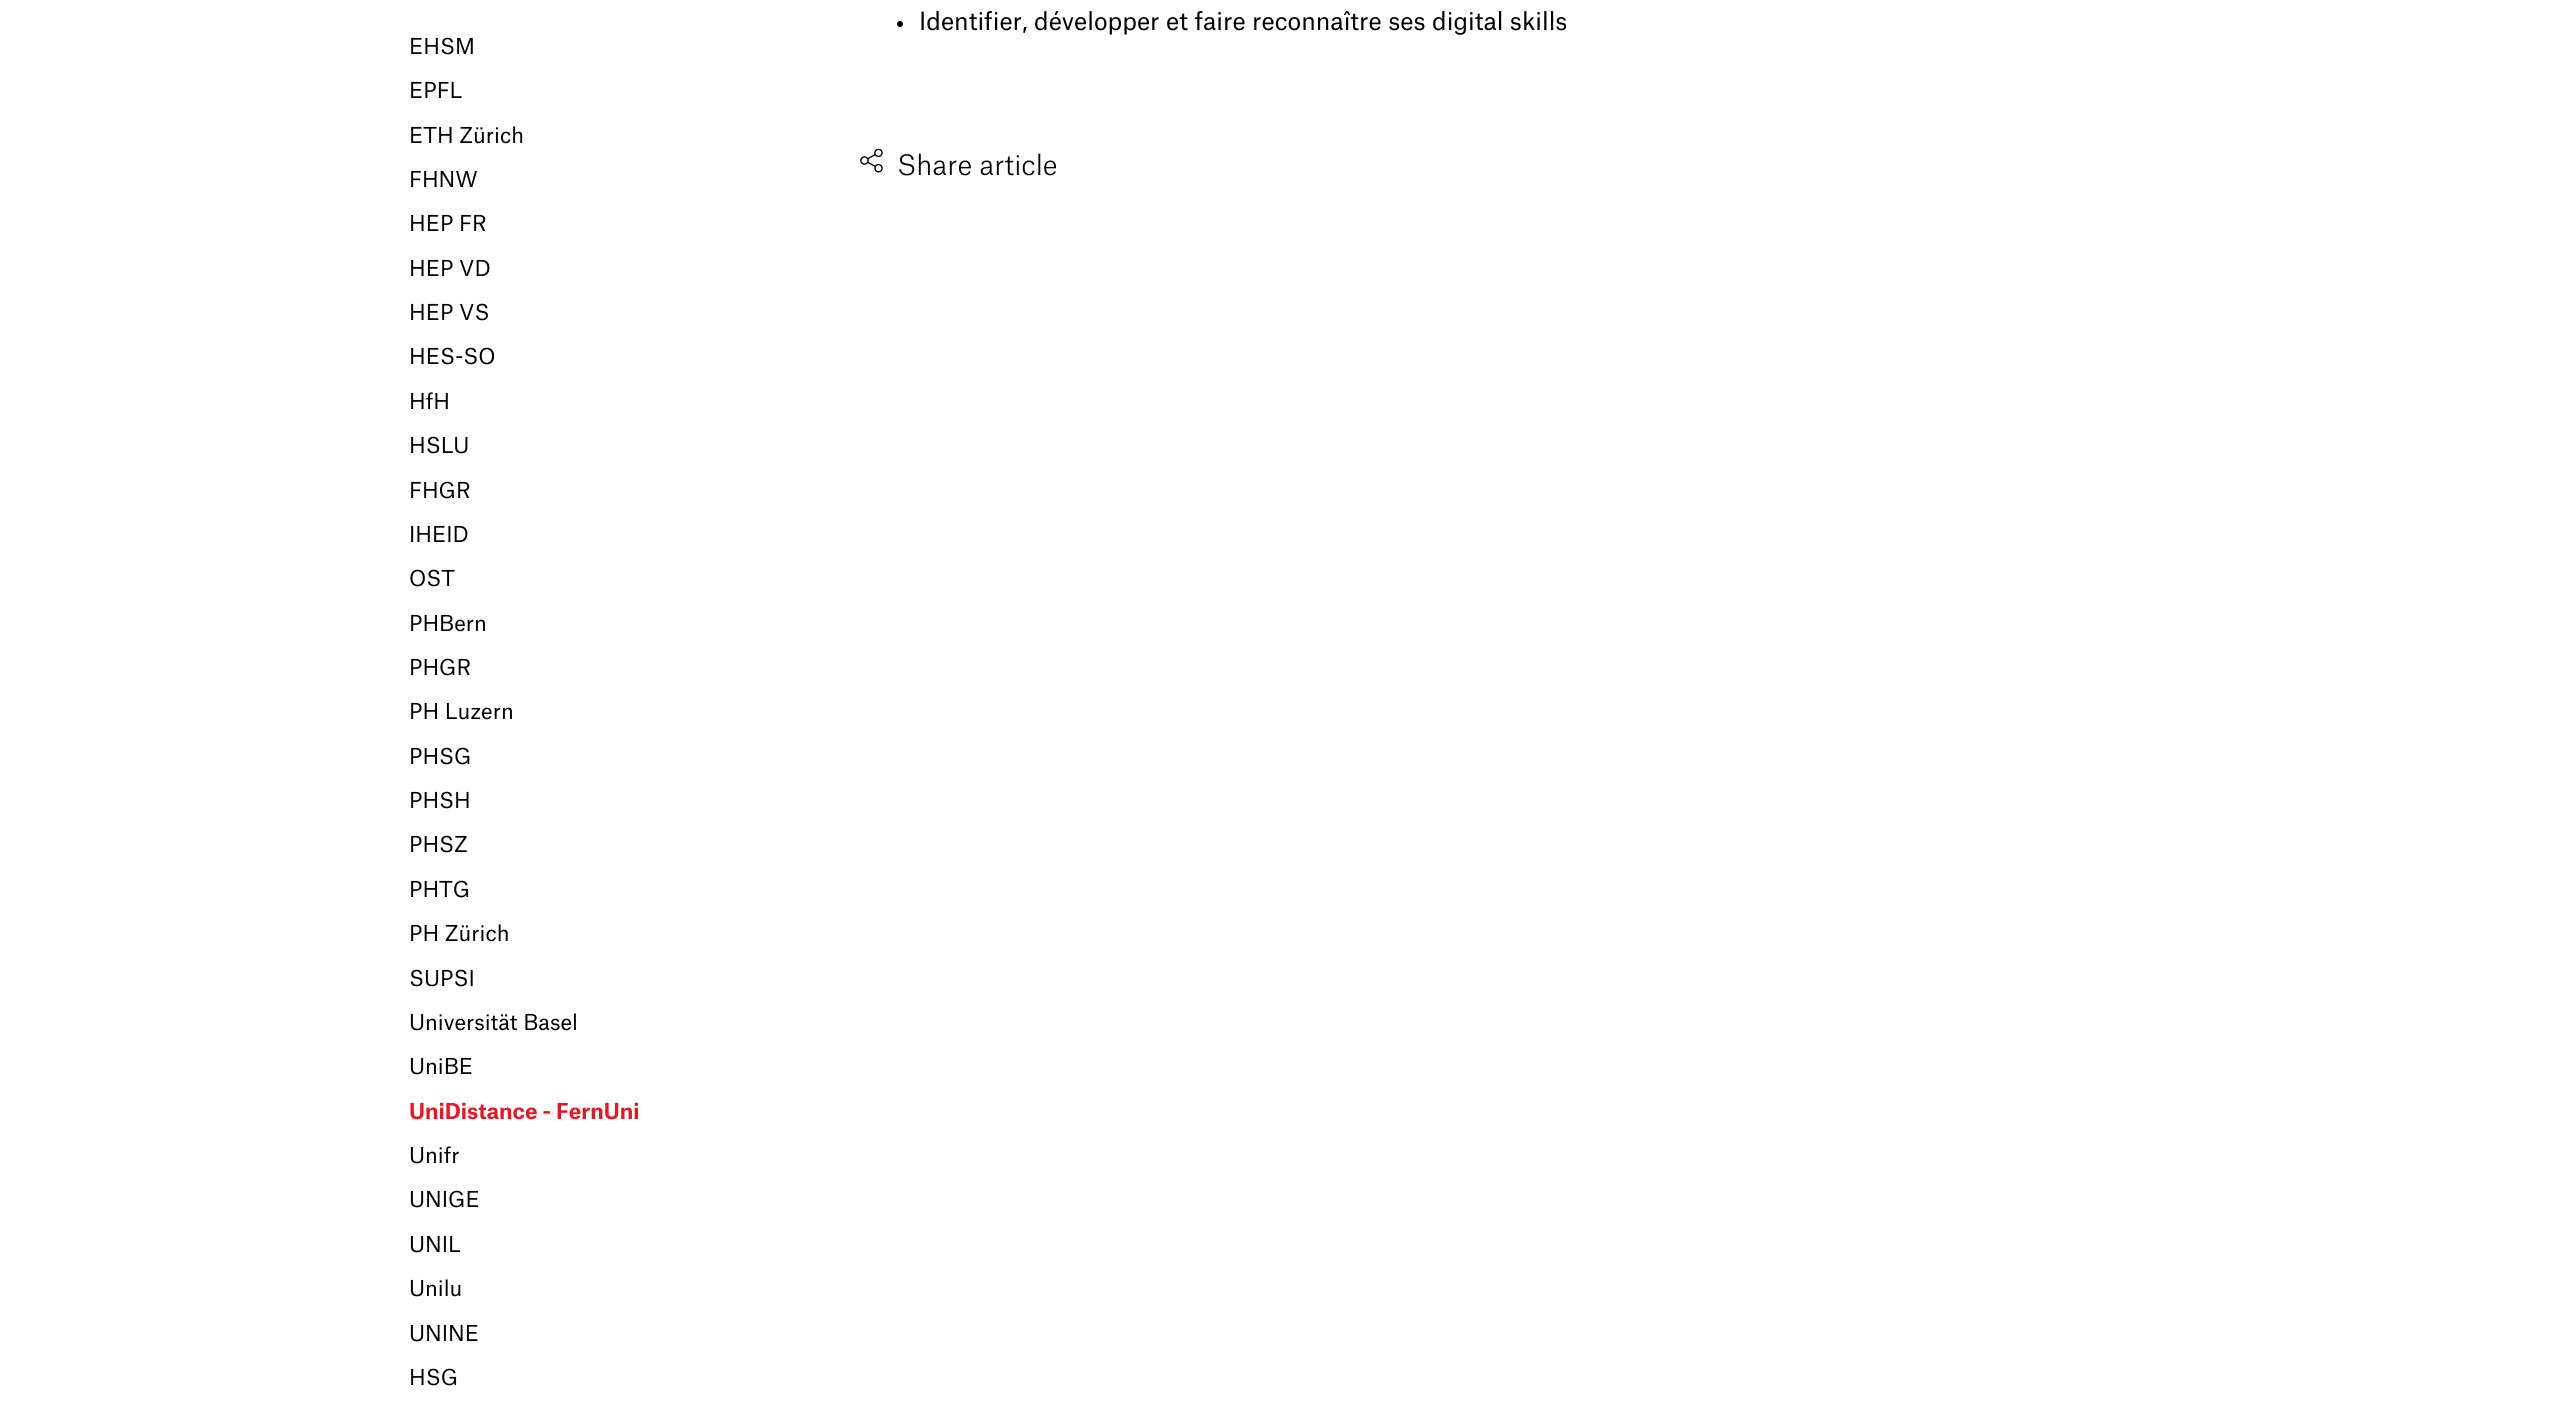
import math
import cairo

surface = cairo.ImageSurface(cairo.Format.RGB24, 2572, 1422)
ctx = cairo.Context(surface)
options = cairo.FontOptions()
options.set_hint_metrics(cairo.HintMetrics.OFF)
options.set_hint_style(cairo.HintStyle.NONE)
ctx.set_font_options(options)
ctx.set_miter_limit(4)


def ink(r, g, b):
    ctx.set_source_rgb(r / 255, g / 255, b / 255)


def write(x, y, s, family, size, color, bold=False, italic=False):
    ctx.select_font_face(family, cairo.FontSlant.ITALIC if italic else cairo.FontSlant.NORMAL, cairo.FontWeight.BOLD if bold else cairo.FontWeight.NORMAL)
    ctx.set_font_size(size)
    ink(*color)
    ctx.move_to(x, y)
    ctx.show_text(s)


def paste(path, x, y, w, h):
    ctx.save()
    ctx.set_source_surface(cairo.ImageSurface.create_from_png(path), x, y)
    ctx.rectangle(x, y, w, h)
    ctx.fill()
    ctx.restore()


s1 = dict(family="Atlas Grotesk", size=21, color=(0, 0, 0))
s2 = dict(family="Atlas Grotesk", size=21, color=(225, 26, 39), bold=True)
s3 = dict(family="Atlas Grotesk", size=24, color=(0, 0, 0))
s4 = dict(family="Atlas Grotesk Light", size=27, color=(0, 0, 0))

ink(255, 255, 255)
ctx.paint()
write(409, 54, "EHSM", **s1)
write(409, 98, "EPFL", **s1)
write(409, 143, "ETH Zürich", **s1)
write(409, 187, "FHNW", **s1)
write(409, 231, "HEP FR", **s1)
write(409, 276, "HEP VD", **s1)
write(409, 320, "HEP VS", **s1)
write(409, 364, "HES-SO", **s1)
write(409, 409, "HfH", **s1)
write(409, 453, "HSLU", **s1)
write(409, 498, "FHGR", **s1)
write(409, 542, "IHEID", **s1)
write(409, 586, "OST", **s1)
write(409, 631, "PHBern", **s1)
write(409, 675, "PHGR", **s1)
write(409, 719, "PH Luzern", **s1)
write(409, 764, "PHSG", **s1)
write(409, 808, "PHSH", **s1)
write(409, 852, "PHSZ", **s1)
write(409, 897, "PHTG", **s1)
write(409, 941, "PH Zürich", **s1)
write(409, 986, "SUPSI", **s1)
write(409, 1030, "Universität Basel", **s1)
write(409, 1074, "UniBE", **s1)
write(409, 1119, "UniDistance - FernUni", **s2)
write(409, 1163, "Unifr", **s1)
write(409, 1207, "UNIGE", **s1)
write(409, 1252, "UNIL", **s1)
write(409, 1296, "Unilu", **s1)
write(409, 1341, "UNINE", **s1)
write(409, 1385, "HSG", **s1)
ctx.new_path()
ctx.arc(900, 24, 3, 0, 2 * math.pi)
ctx.fill()
write(919, 30, "Identifier, développer et faire reconnaître ses digital skills", **s3)
paste("pic1.png", 860, 149, 23, 24)
write(897, 175, "Share article", **s4)
surface.write_to_png("screenshot.png")
